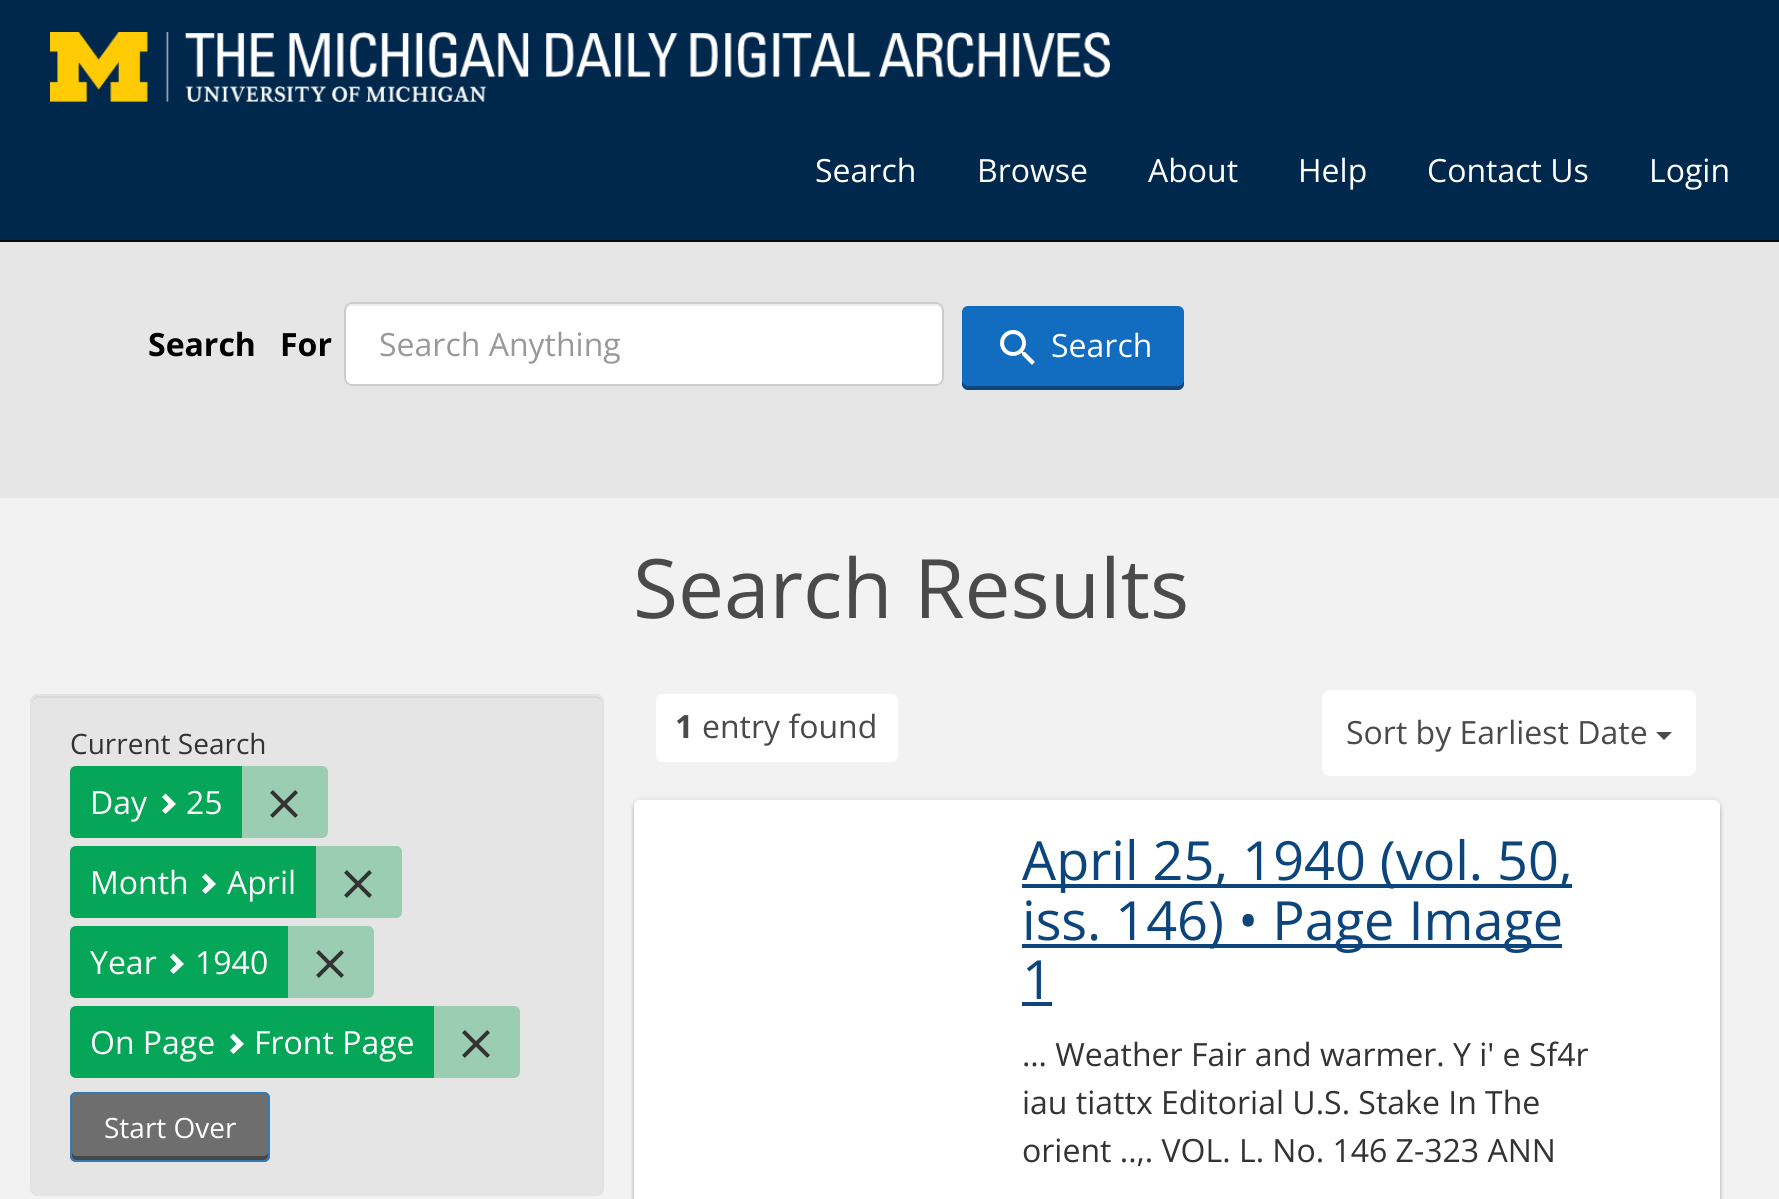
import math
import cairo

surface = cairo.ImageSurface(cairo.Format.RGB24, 1779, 1199)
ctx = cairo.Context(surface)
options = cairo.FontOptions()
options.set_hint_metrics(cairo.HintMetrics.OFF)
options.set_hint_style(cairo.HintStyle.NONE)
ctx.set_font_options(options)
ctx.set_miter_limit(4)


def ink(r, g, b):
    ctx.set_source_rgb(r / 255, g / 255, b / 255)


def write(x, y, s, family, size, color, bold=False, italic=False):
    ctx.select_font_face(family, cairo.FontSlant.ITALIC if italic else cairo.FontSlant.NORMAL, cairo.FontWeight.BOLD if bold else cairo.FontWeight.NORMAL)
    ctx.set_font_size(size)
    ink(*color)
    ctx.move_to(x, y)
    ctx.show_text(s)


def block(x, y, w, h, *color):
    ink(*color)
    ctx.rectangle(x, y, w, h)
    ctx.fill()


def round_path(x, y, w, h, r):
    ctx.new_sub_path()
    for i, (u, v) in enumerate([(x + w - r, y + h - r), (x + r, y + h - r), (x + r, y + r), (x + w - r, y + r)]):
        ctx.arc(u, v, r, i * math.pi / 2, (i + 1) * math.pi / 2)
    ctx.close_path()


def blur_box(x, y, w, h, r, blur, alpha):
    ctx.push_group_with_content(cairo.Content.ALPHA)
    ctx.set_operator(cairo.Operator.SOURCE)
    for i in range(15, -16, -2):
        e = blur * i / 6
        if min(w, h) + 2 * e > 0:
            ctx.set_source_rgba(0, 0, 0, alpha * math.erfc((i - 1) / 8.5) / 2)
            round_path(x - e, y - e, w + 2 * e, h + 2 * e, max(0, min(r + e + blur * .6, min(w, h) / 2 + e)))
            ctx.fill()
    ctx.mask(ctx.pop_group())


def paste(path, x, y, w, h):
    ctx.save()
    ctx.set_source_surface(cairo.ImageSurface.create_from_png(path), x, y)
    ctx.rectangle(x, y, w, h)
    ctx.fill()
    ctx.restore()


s1 = dict(family="Open Sans", size=32, color=(255, 255, 255))
s2 = dict(family="Open Sans", size=32, color=(0, 0, 0), bold=True)
s3 = dict(family="Open Sans", size=32, color=(153, 153, 153))
s4 = dict(family="Open Sans", size=82, color=(74, 74, 74))
s5 = dict(family="Open Sans", size=28, color=(51, 51, 51))
s6 = dict(family="Open Sans", size=28, color=(255, 255, 255))
s7 = dict(family="Open Sans", size=32, color=(74, 74, 74), bold=True)
s8 = dict(family="Open Sans", size=32, color=(74, 74, 74))
s9 = dict(family="Open Sans", size=54, color=(11, 69, 123))
s10 = dict(family="Open Sans", size=32, color=(51, 51, 51))

ink(242, 242, 242)
ctx.paint()
block(0, 0, 1779, 240, 0, 39, 76)
block(0, 240, 1779, 2, 9, 9, 9)
paste("pic1.png", 50, 32, 1060, 70)
write(815, 182, "Search", **s1)
write(977, 182, "Browse", **s1)
write(1148, 182, "About", **s1)
write(1298, 182, "Help", **s1)
write(1427, 182, "Contact Us", **s1)
write(1649, 182, "Login", **s1)
block(0, 496, 1779, 2, 231, 231, 231)
block(0, 242, 1779, 254, 230, 230, 230)
write(148, 356, "Search", **s2)
write(280, 356, "For", **s2)
ink(255, 255, 255)
round_path(344, 302, 600, 84, 8)
ctx.fill()
ink(236, 236, 236)
ctx.new_path()
ctx.move_to(352, 306)
ctx.line_to(936, 306)
ctx.curve_to(939, 306, 942, 309, 942, 312)
ctx.line_to(942, 310)
ctx.curve_to(942, 307, 939, 304, 936, 304)
ctx.line_to(352, 304)
ctx.curve_to(349, 304, 346, 307, 346, 310)
ctx.line_to(346, 312)
ctx.curve_to(346, 309, 349, 306, 352, 306)
ctx.close_path()
ctx.fill()
round_path(345, 303, 598, 82, 7)
ink(204, 204, 204)
ctx.stroke()
write(379, 356, "Search Anything", **s3)
ink(18, 109, 193)
round_path(962, 306, 222, 84, 6)
ctx.fill()
ctx.set_source_rgba(0, 0, 0, 0.36)
ctx.new_path()
ctx.move_to(962, 380)
ctx.line_to(962, 384)
ctx.curve_to(962, 387, 965, 390, 968, 390)
ctx.line_to(1178, 390)
ctx.curve_to(1181, 390, 1184, 387, 1184, 384)
ctx.line_to(1184, 380)
ctx.curve_to(1184, 383, 1181, 386, 1178, 386)
ctx.line_to(968, 386)
ctx.curve_to(965, 386, 962, 383, 962, 380)
ctx.close_path()
ctx.fill()
paste("pic2.png", 1000, 330, 35, 35)
write(1051, 357, "Search", **s1)
write(633, 618, "Search Results", **s4)
ink(229, 229, 229)
round_path(30, 694, 574, 502, 8)
ctx.fill()
ink(218, 218, 218)
ctx.new_path()
ctx.move_to(38, 698)
ctx.line_to(596, 698)
ctx.curve_to(599, 698, 602, 701, 602, 704)
ctx.line_to(602, 702)
ctx.curve_to(602, 699, 599, 696, 596, 696)
ctx.line_to(38, 696)
ctx.curve_to(35, 696, 32, 699, 32, 702)
ctx.line_to(32, 704)
ctx.curve_to(32, 701, 35, 698, 38, 698)
ctx.close_path()
ctx.fill()
round_path(31, 695, 572, 500, 7)
ink(227, 227, 227)
ctx.stroke()
write(70, 754, "Current Search", **s5)
ink(5, 166, 87)
ctx.new_path()
ctx.move_to(76, 766)
ctx.line_to(242, 766)
ctx.line_to(242, 838)
ctx.line_to(76, 838)
ctx.curve_to(72.5, 838, 70, 835.5, 70, 832)
ctx.line_to(70, 772)
ctx.curve_to(70, 768.5, 72.5, 766, 76, 766)
ctx.close_path()
ctx.fill()
write(90, 814, "Day", **s1)
ctx.new_path()
ctx.move_to(176, 804)
ctx.line_to(165.5, 814)
ctx.line_to(162, 810.5)
ctx.line_to(168.5, 804)
ctx.line_to(162, 797)
ctx.line_to(165.5, 793.5)
ctx.close_path()
ctx.fill()
write(186, 814, "25", **s1)
ctx.set_source_rgba(0.102, 0.647, 0.353, 0.36)
ctx.new_path()
ctx.move_to(240, 766)
ctx.line_to(322, 766)
ctx.curve_to(325.5, 766, 328, 768.5, 328, 772)
ctx.line_to(328, 832)
ctx.curve_to(328, 835.5, 325.5, 838, 322, 838)
ctx.line_to(240, 838)
ctx.close_path()
ctx.fill()
paste("pic3.png", 270, 790, 28, 28)
ink(5, 166, 87)
ctx.new_path()
ctx.move_to(76, 846)
ctx.line_to(316, 846)
ctx.line_to(316, 918)
ctx.line_to(76, 918)
ctx.curve_to(72.5, 918, 70, 915.5, 70, 912)
ctx.line_to(70, 852)
ctx.curve_to(70, 848.5, 72.5, 846, 76, 846)
ctx.close_path()
ctx.fill()
write(90, 894, "Month", **s1)
ctx.new_path()
ctx.move_to(216, 884)
ctx.line_to(205.5, 894)
ctx.line_to(202, 890.5)
ctx.line_to(208.5, 884)
ctx.line_to(202, 877)
ctx.line_to(205.5, 873.5)
ctx.close_path()
ctx.fill()
write(227, 894, "April", **s1)
ctx.set_source_rgba(0.102, 0.647, 0.353, 0.36)
ctx.new_path()
ctx.move_to(314, 846)
ctx.line_to(396, 846)
ctx.curve_to(399.5, 846, 402, 848.5, 402, 852)
ctx.line_to(402, 912)
ctx.curve_to(402, 915.5, 399.5, 918, 396, 918)
ctx.line_to(314, 918)
ctx.close_path()
ctx.fill()
paste("pic3.png", 344, 870, 28, 28)
ink(5, 166, 87)
ctx.new_path()
ctx.move_to(76, 926)
ctx.line_to(288, 926)
ctx.line_to(288, 998)
ctx.line_to(76, 998)
ctx.curve_to(72.5, 998, 70, 995.5, 70, 992)
ctx.line_to(70, 932)
ctx.curve_to(70, 928.5, 72.5, 926, 76, 926)
ctx.close_path()
ctx.fill()
write(90, 974, "Year", **s1)
ctx.new_path()
ctx.move_to(184, 964)
ctx.line_to(173.5, 974)
ctx.line_to(170, 970.5)
ctx.line_to(176.5, 964)
ctx.line_to(170, 957)
ctx.line_to(173.5, 953.5)
ctx.close_path()
ctx.fill()
write(195, 974, "1940", **s1)
ctx.set_source_rgba(0.102, 0.647, 0.353, 0.36)
ctx.new_path()
ctx.move_to(286, 926)
ctx.line_to(368, 926)
ctx.curve_to(371.5, 926, 374, 928.5, 374, 932)
ctx.line_to(374, 992)
ctx.curve_to(374, 995.5, 371.5, 998, 368, 998)
ctx.line_to(286, 998)
ctx.close_path()
ctx.fill()
paste("pic3.png", 316, 950, 28, 28)
ink(5, 166, 87)
ctx.new_path()
ctx.move_to(76, 1006)
ctx.line_to(434, 1006)
ctx.line_to(434, 1078)
ctx.line_to(76, 1078)
ctx.curve_to(72.5, 1078, 70, 1075.5, 70, 1072)
ctx.line_to(70, 1012)
ctx.curve_to(70, 1008.5, 72.5, 1006, 76, 1006)
ctx.close_path()
ctx.fill()
write(90, 1054, "On Page", **s1)
ctx.new_path()
ctx.move_to(244, 1044)
ctx.line_to(233.5, 1054)
ctx.line_to(230, 1050.5)
ctx.line_to(236.5, 1044)
ctx.line_to(230, 1037)
ctx.line_to(233.5, 1033.5)
ctx.close_path()
ctx.fill()
write(254, 1054, "Front Page", **s1)
ctx.set_source_rgba(0.102, 0.647, 0.353, 0.36)
ctx.new_path()
ctx.move_to(432, 1006)
ctx.line_to(514, 1006)
ctx.curve_to(517.5, 1006, 520, 1008.5, 520, 1012)
ctx.line_to(520, 1072)
ctx.curve_to(520, 1075.5, 517.5, 1078, 514, 1078)
ctx.line_to(432, 1078)
ctx.close_path()
ctx.fill()
paste("pic3.png", 462, 1030, 28, 28)
ink(110, 110, 110)
round_path(70, 1092, 200, 70, 6)
ctx.fill()
ink(70, 70, 70)
ctx.new_path()
ctx.move_to(72, 1152)
ctx.line_to(72, 1156)
ctx.curve_to(72, 1158, 74, 1160, 76, 1160)
ctx.line_to(264, 1160)
ctx.curve_to(266, 1160, 268, 1158, 268, 1156)
ctx.line_to(268, 1152)
ctx.curve_to(268, 1154, 266, 1156, 264, 1156)
ctx.line_to(76, 1156)
ctx.curve_to(74, 1156, 72, 1154, 72, 1152)
ctx.close_path()
ctx.fill()
round_path(71, 1093, 198, 68, 5)
ink(51, 122, 183)
ctx.stroke()
write(104, 1138, "Start Over", **s6)
round_path(656, 694, 242, 68, 6)
ctx.fill()
write(675, 738, "1", **s7)
write(702, 738, "entry found", **s8)
ink(255, 255, 255)
round_path(1322, 690, 374, 86, 8)
ctx.fill()
write(1346, 744, "Sort by Earliest Date", **s8)
ctx.new_path()
ctx.move_to(1656, 732)
ctx.line_to(1672, 732)
ctx.line_to(1664, 740)
ctx.close_path()
ctx.fill()
ink(0, 0, 0)
blur_box(634, 800, 1086, 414, 6, 3, 0.12)
blur_box(634, 804, 1086, 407, 6, 2, 0.24)
ink(255, 255, 255)
round_path(634, 800, 1086, 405, 6)
ctx.fill()
block(1022, 884, 550, 4, 11, 69, 123)
write(1022, 880, "April 25, 1940 (vol. 50,", **s9)
block(1022, 944, 540, 4, 11, 69, 123)
write(1022, 940, "iss. 146) • Page Image", **s9)
write(1022, 999, "1", **s9)
block(1022, 1002, 30, 4, 11, 69, 123)
write(1022, 1066, "… Weather Fair and warmer. Y i' e Sf4r", **s10)
write(1022, 1114, "iau tiattx Editorial U.S. Stake In The", **s10)
write(1022, 1162, "orient ..,. VOL. L. No. 146 Z-323 ANN", **s10)
surface.write_to_png("screenshot.png")
